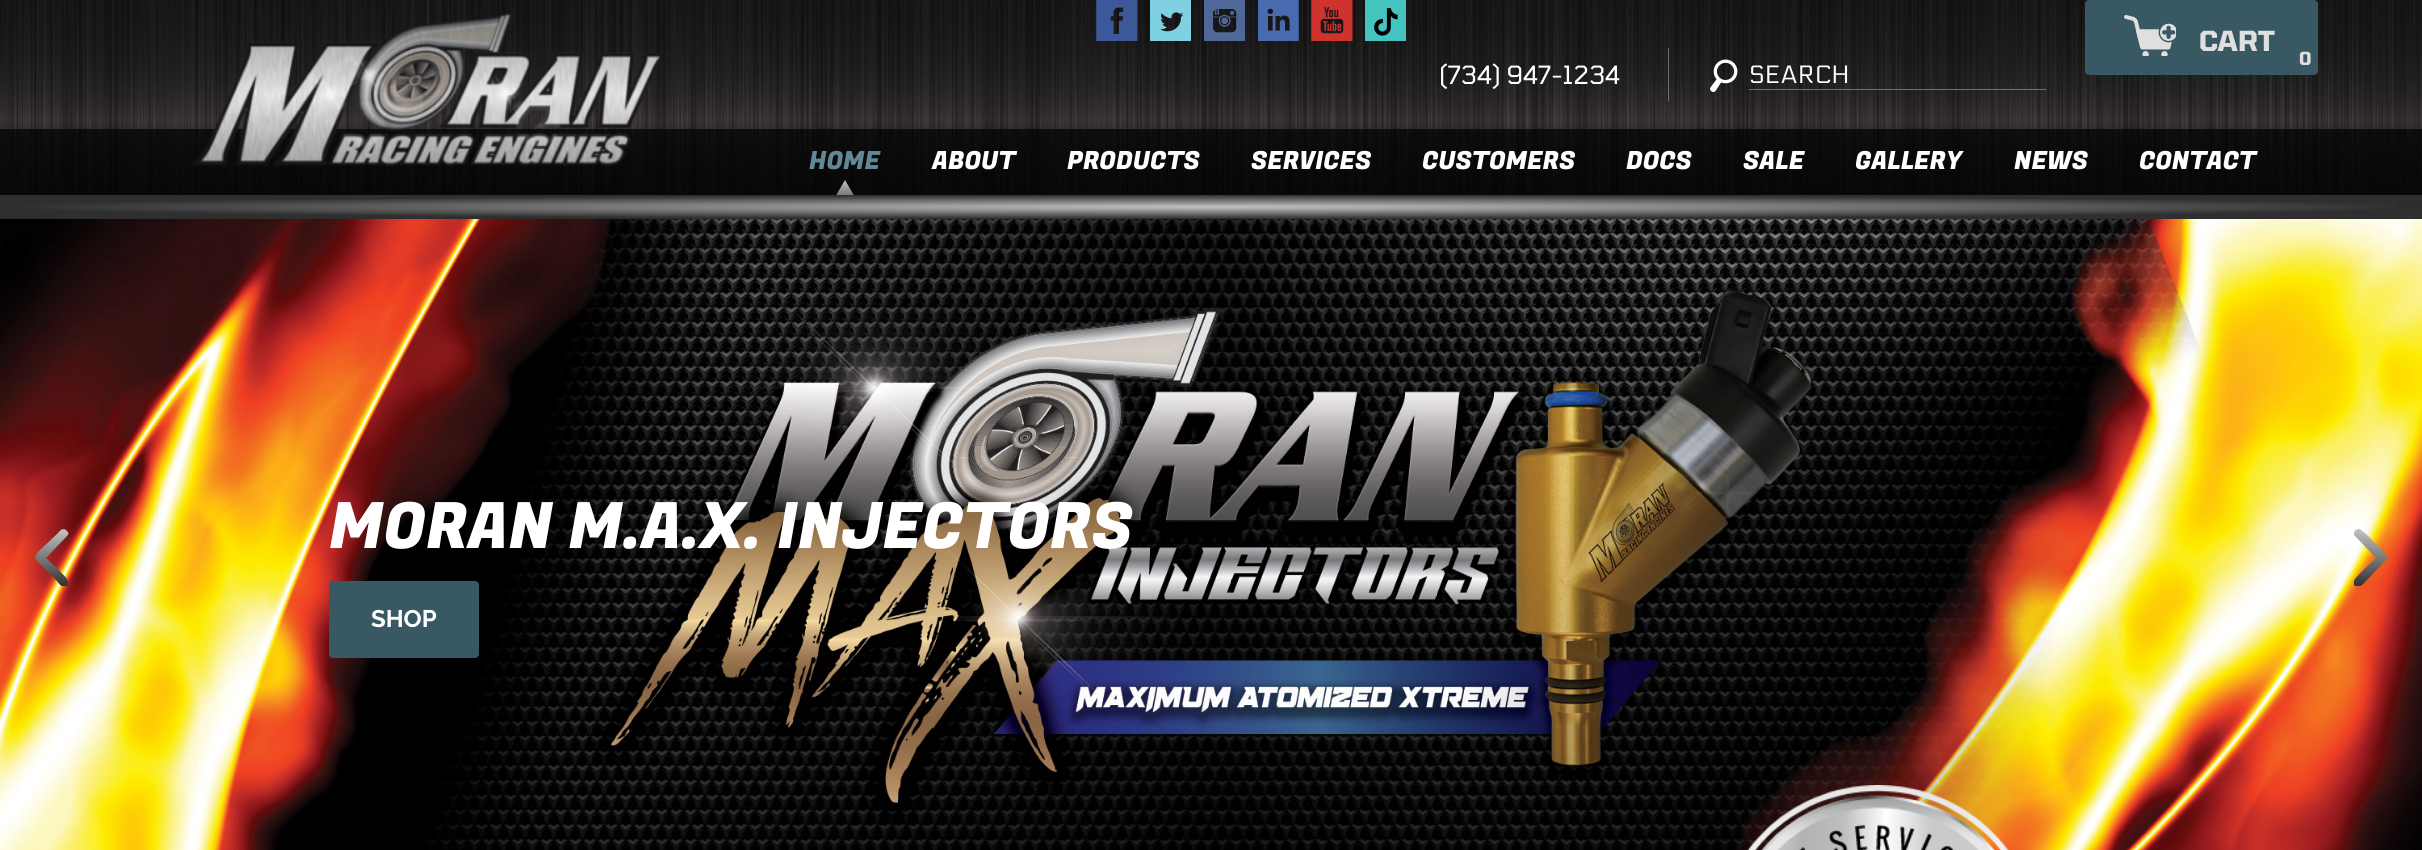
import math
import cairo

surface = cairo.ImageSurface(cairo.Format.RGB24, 2422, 850)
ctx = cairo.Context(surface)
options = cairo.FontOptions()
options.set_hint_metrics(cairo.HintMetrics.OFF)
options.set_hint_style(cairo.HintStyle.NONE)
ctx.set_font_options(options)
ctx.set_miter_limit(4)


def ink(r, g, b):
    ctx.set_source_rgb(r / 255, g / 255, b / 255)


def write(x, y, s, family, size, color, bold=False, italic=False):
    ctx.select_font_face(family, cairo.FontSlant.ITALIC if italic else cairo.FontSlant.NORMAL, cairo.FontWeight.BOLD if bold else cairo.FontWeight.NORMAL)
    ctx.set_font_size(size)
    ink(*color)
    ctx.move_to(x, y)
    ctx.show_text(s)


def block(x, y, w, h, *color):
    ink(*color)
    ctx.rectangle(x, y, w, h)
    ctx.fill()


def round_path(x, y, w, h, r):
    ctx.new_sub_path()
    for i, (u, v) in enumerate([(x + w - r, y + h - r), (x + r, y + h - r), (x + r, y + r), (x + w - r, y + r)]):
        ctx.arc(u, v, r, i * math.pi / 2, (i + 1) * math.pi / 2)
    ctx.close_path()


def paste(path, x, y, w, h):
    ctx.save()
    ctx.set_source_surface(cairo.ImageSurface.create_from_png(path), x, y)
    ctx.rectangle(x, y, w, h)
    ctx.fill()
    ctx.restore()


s1 = dict(family="Tomorrow", size=27.5, color=(223, 223, 223), bold=True)
s2 = dict(family="Tomorrow", size=18, color=(223, 223, 223), bold=True)
s3 = dict(family="Tomorrow", size=25, color=(255, 255, 255))
s4 = dict(family="Electrolize", size=25, color=(255, 255, 255))
s5 = dict(family="Fugaz One", size=25, color=(97, 136, 150))
s6 = dict(family="Fugaz One", size=25, color=(255, 255, 255))
s7 = dict(family="Fugaz One", size=63.75, color=(255, 255, 255))
s8 = dict(family="Raleway Thin", size=24, color=(255, 255, 255))

ink(255, 255, 255)
ctx.paint()
paste("pic1.png", 0, 0, 2422, 195)
ctx.set_source_rgba(0, 0, 0, 0.69)
ctx.rectangle(0, 129, 2422, 66)
ctx.fill()
paste("pic2.png", 192, 13, 478, 153)
paste("pic3.png", 1096, 0, 42, 41)
paste("pic4.png", 1150, 0, 41, 41)
paste("pic5.png", 1204, 0, 41, 41)
paste("pic6.png", 1258, 0, 41, 41)
paste("pic7.png", 1311, 0, 42, 41)
paste("pic8.png", 1365, 0, 41, 41)
ink(56, 88, 100)
round_path(2085, 0, 233, 75, 4)
ctx.fill()
paste("pic9.png", 2124, 15, 52, 41)
write(2199, 51, "CART", **s1)
write(2299, 65, "0", **s2)
write(1439, 84, "(734) 947-1234", **s3)
block(1668, 48, 1, 53, 112, 112, 112)
paste("pic10.png", 1710, 59, 28, 33)
block(1749, 89, 297, 1, 112, 112, 112)
write(1749, 83, "SEARCH", **s4)
write(809, 169, "HOME", **s5)
paste("pic11.png", 0, 195, 2422, 24)
gradient = cairo.LinearGradient(845, 180, 845, 210)
gradient.add_color_stop_rgba(0, 0.765, 0.765, 0.765, 1)
gradient.add_color_stop_rgba(1, 0.184, 0.184, 0.184, 1)
ctx.set_source(gradient)
ctx.new_path()
ctx.move_to(845, 180)
ctx.line_to(862.5, 210)
ctx.line_to(827.5, 210)
ctx.close_path()
ctx.fill()
write(932, 169, "ABOUT", **s6)
write(1067, 169, "PRODUCTS", **s6)
write(1251, 169, "SERVICES", **s6)
write(1422, 169, "CUSTOMERS", **s6)
write(1626, 169, "DOCS", **s6)
write(1743, 169, "SALE", **s6)
write(1855, 169, "GALLERY", **s6)
write(2014, 169, "NEWS", **s6)
write(2139, 169, "CONTACT", **s6)
paste("pic12.png", 0, 195, 2396, 24)
paste("pic13.png", 0, 219, 2422, 631)
ctx.save()
ctx.rectangle(35, 529, 34, 57)
ctx.clip()
gradient = cairo.LinearGradient(52, 529, 52, 587)
gradient.add_color_stop_rgba(0, 0.765, 0.765, 0.765, 1)
gradient.add_color_stop_rgba(1, 0.184, 0.184, 0.184, 1)
ctx.set_source(gradient)
ctx.new_path()
ctx.move_to(46, 558)
ctx.curve_to(49, 561, 68, 578, 68, 581)
ctx.curve_to(69, 583, 68, 585, 67, 586)
ctx.curve_to(63, 589, 59, 584, 57, 581)
ctx.line_to(36, 560)
ctx.curve_to(33, 556, 38, 553, 40, 550)
ctx.line_to(57, 534)
ctx.curve_to(59, 532, 62, 527, 66, 530)
ctx.line_to(68, 532)
ctx.curve_to(69, 534, 68, 535, 67, 536)
ctx.close_path()
ctx.fill()
ctx.restore()
write(329, 548, "MORAN M.A.X. INJECTORS", **s7)
ink(56, 88, 100)
round_path(329, 581, 150, 77, 4)
ctx.fill()
write(371, 627, "SHOP", **s8)
ctx.save()
ctx.rectangle(2354, 529, 34, 57)
ctx.clip()
gradient = cairo.LinearGradient(2370, 529, 2370, 587)
gradient.add_color_stop_rgba(0, 0.765, 0.765, 0.765, 1)
gradient.add_color_stop_rgba(1, 0.184, 0.184, 0.184, 1)
ctx.set_source(gradient)
ctx.new_path()
ctx.move_to(2376, 558)
ctx.curve_to(2373, 561, 2354, 578, 2354, 581)
ctx.curve_to(2353, 583, 2354, 585, 2355, 586)
ctx.curve_to(2359, 589, 2363, 584, 2366, 581)
ctx.line_to(2386, 560)
ctx.curve_to(2389, 556, 2384, 553, 2382, 550)
ctx.line_to(2366, 534)
ctx.curve_to(2363, 532, 2360, 527, 2356, 530)
ctx.line_to(2354, 532)
ctx.curve_to(2354, 534, 2354, 535, 2355, 536)
ctx.close_path()
ctx.fill()
ctx.restore()
paste("pic14.png", 1747, 785, 262, 65)
surface.write_to_png("screenshot.png")
